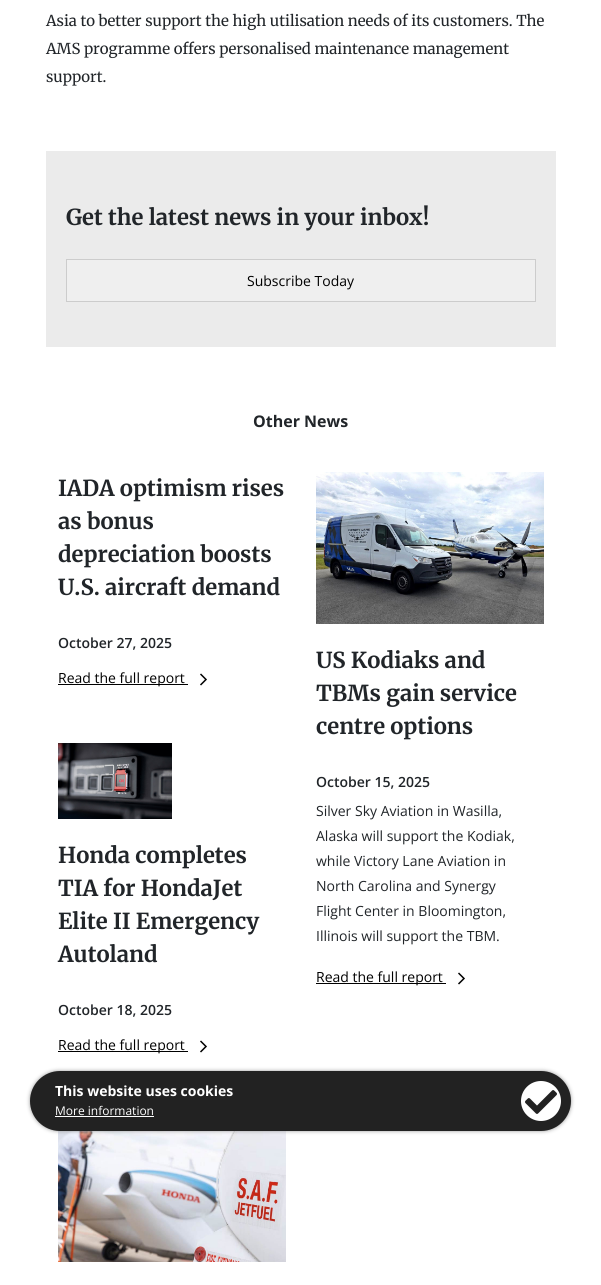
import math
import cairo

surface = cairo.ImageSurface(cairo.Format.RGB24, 601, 1285)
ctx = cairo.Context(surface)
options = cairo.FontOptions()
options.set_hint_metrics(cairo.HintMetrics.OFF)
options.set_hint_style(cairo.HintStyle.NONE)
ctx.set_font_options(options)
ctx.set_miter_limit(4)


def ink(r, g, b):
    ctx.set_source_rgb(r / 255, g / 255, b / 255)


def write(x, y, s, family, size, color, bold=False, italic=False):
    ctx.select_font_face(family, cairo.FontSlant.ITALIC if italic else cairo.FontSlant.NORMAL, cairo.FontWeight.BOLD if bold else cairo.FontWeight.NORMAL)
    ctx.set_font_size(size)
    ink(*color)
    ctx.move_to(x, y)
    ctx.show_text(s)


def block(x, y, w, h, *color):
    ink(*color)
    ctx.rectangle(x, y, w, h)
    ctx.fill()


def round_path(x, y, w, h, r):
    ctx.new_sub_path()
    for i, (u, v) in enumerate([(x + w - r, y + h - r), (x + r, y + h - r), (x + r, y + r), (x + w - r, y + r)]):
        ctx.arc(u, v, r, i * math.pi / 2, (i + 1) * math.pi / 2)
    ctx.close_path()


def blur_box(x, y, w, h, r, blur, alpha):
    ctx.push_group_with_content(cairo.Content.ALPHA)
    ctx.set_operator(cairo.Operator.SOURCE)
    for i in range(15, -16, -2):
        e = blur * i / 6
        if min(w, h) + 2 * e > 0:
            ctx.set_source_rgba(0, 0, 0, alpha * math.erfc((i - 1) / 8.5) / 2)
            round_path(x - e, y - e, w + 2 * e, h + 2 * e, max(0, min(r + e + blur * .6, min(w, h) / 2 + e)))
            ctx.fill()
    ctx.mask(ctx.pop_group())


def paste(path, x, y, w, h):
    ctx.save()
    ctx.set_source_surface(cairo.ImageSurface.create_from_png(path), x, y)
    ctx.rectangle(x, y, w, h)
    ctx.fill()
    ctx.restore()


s1 = dict(family="Merriweather", size=15, color=(33, 37, 41))
s2 = dict(family="Merriweather", size=22, color=(33, 37, 41), bold=True)
s3 = dict(family="Open Sans", size=14, color=(0, 0, 0))
s4 = dict(family="Open Sans", size=16, color=(33, 37, 41), bold=True)
s5 = dict(family="Open Sans SemiBold", size=14, color=(33, 37, 41))
s6 = dict(family="Open Sans", size=14, color=(33, 37, 41))
s7 = dict(family="Open Sans", size=14, color=(255, 255, 255), bold=True)
s8 = dict(family="Open Sans", size=12, color=(255, 255, 255))

ink(255, 255, 255)
ctx.paint()
write(46, 26, "Asia to better support the high utilisation needs of its customers. The", **s1)
write(46, 54, "AMS programme offers personalised maintenance management", **s1)
write(46, 82, "support.", **s1)
block(46, 151, 510, 196, 235, 235, 235)
write(66, 225, "Get the latest news in your inbox!", **s2)
ink(239, 239, 239)
ctx.rectangle(66.5, 259.5, 469, 42)
ctx.fill_preserve()
ink(204, 204, 204)
ctx.set_line_width(1)
ctx.stroke()
write(247, 286, "Subscribe Today", **s3)
write(253, 427, "Other News", **s4)
write(58, 496, "IADA optimism rises", **s2)
write(58, 529, "as bonus", **s2)
write(58, 562, "depreciation boosts", **s2)
write(58, 595, "U.S. aircraft demand", **s2)
write(58, 648, "October 27, 2025", **s5)
block(58, 684, 130, 1, 0, 0, 0)
write(58, 683, "Read the full report", **s3)
ctx.save()
ctx.new_path()
ctx.move_to(207.5, 673.5)
ctx.line_to(207.5, 685.5)
ctx.line_to(199.5, 685.5)
ctx.line_to(199.5, 673.5)
ctx.close_path()
ctx.clip()
ctx.new_path()
ctx.move_to(200.5, 674)
ctx.line_to(206, 679.5)
ctx.line_to(200.5, 685)
ctx.set_line_width(1.5)
ctx.stroke()
ctx.restore()
paste("pic1.png", 58, 743, 114, 76)
write(58, 863, "Honda completes", **s2)
write(58, 896, "TIA for HondaJet", **s2)
write(58, 929, "Elite II Emergency", **s2)
write(58, 962, "Autoland", **s2)
write(58, 1015, "October 18, 2025", **s5)
block(58, 1051, 130, 1, 0, 0, 0)
write(58, 1050, "Read the full report", **s3)
ctx.save()
ctx.new_path()
ctx.move_to(207.5, 1040.5)
ctx.line_to(207.5, 1052.5)
ctx.line_to(199.5, 1052.5)
ctx.line_to(199.5, 1040.5)
ctx.close_path()
ctx.clip()
ctx.new_path()
ctx.move_to(200.5, 1041)
ctx.line_to(206, 1046.5)
ctx.line_to(200.5, 1052)
ctx.set_line_width(1.5)
ctx.stroke()
ctx.restore()
paste("pic2.png", 316, 472, 228, 152)
write(316, 668, "US Kodiaks and", **s2)
write(316, 701, "TBMs gain service", **s2)
write(316, 734, "centre options", **s2)
write(316, 787, "October 15, 2025", **s5)
write(316, 816, "Silver Sky Aviation in Wasilla,", **s6)
write(316, 841, "Alaska will support the Kodiak,", **s6)
write(316, 866, "while Victory Lane Aviation in", **s6)
write(316, 891, "North Carolina and Synergy", **s6)
write(316, 916, "Flight Center in Bloomington,", **s6)
write(316, 941, "Illinois will support the TBM.", **s6)
block(316, 983, 130, 1, 0, 0, 0)
write(316, 982, "Read the full report", **s3)
ctx.save()
ctx.new_path()
ctx.move_to(465.5, 972.5)
ctx.line_to(465.5, 984.5)
ctx.line_to(457.5, 984.5)
ctx.line_to(457.5, 972.5)
ctx.close_path()
ctx.clip()
ctx.new_path()
ctx.move_to(458.5, 973)
ctx.line_to(464, 978.5)
ctx.line_to(458.5, 984)
ctx.set_line_width(1.5)
ctx.stroke()
ctx.restore()
paste("pic3.png", 58, 1130, 228, 132)
ink(153, 153, 153)
blur_box(30, 1071, 541, 60, 30, 2, 1)
ink(34, 34, 34)
round_path(30, 1071, 541, 60, 30)
ctx.fill()
write(55, 1096, "This website uses cookies", **s7)
write(55, 1115, "More information", **s8)
block(55, 1116, 99, 1, 255, 255, 255)
ctx.new_path()
ctx.arc(541, 1101, 20, 0, 2 * math.pi)
ctx.fill()
paste("pic4.png", 525, 1090, 32, 24)
surface.write_to_png("screenshot.png")
